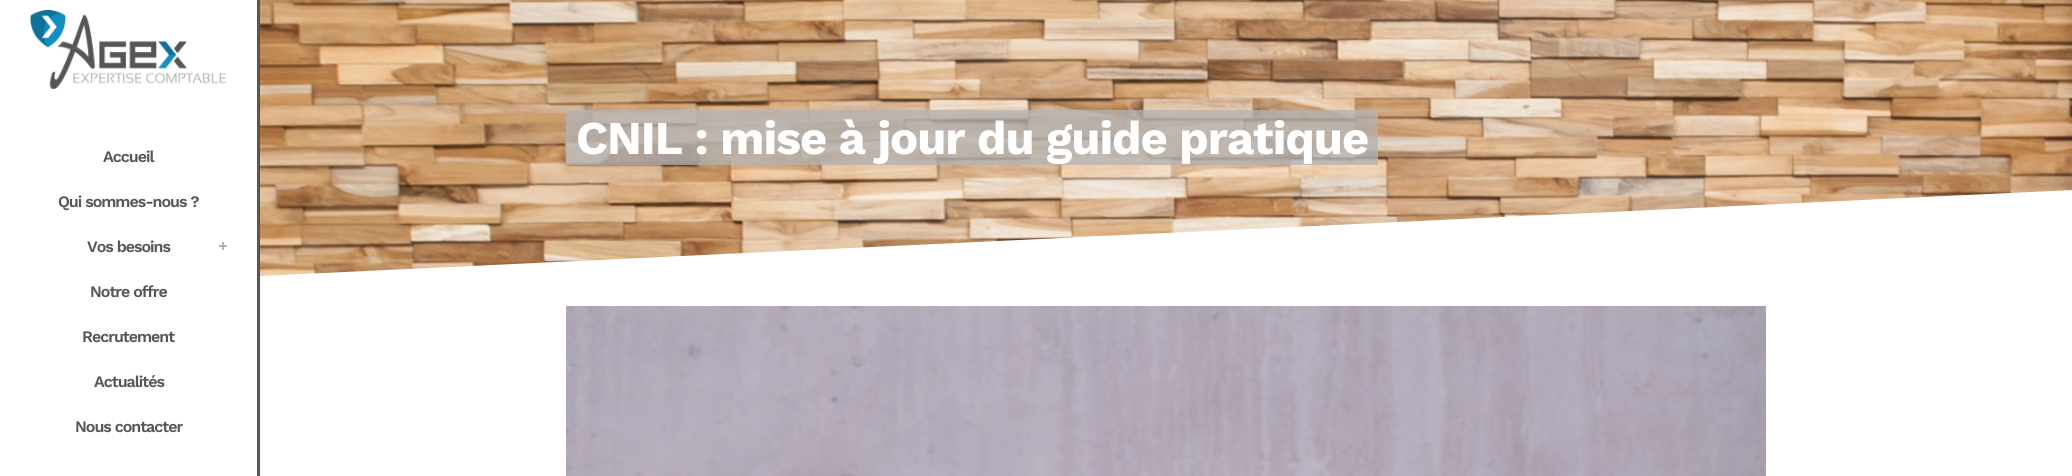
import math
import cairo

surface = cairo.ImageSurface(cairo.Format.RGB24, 2072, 476)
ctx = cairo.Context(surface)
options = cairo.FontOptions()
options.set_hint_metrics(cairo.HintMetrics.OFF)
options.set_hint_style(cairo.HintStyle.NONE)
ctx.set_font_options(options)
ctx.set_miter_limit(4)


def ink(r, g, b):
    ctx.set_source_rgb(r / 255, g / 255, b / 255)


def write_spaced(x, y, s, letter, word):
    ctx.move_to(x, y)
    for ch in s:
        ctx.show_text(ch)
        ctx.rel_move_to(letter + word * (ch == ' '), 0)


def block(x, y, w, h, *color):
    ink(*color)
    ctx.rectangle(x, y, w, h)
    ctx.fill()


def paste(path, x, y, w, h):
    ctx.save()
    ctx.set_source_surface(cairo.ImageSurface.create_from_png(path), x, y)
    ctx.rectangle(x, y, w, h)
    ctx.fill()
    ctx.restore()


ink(255, 255, 255)
ctx.paint()
paste("pic1.png", 260, 0, 1812, 276)
ctx.set_source_rgba(0.702, 0.698, 0.698, 0.78)
ctx.rectangle(566, 110, 812, 55)
ctx.fill()
ctx.select_font_face("Work Sans", cairo.FontSlant.NORMAL, cairo.FontWeight.BOLD)
ctx.set_font_size(47)
ink(255, 255, 255)
write_spaced(576, 154, "CNIL : mise à jour du guide pratique", -1, 0)
ctx.new_path()
ctx.move_to(260, 276)
ctx.line_to(2072, 190)
ctx.line_to(2072, 276)
ctx.close_path()
ctx.fill()
paste("pic2.png", 566, 306, 1200, 170)
block(257, 0, 3, 476, 87, 86, 86)
paste("pic3.png", 30, 10, 196, 79)
ctx.select_font_face("Work Sans SemiBold")
ctx.set_font_size(16)
write_spaced(103, 162, "Accueil", -1, 0)
write_spaced(58, 207, "Qui sommes-nous ?", -1, 0)
write_spaced(87, 252, "Vos besoins", -1, 0)
paste("pic4.png", 219, 242, 8, 8)
write_spaced(90, 297, "Notre offre", -1, 0)
write_spaced(82, 342, "Recrutement", -1, 0)
write_spaced(94, 387, "Actualités", -1, 0)
write_spaced(75, 432, "Nous contacter", -1, 0)
surface.write_to_png("screenshot.png")
